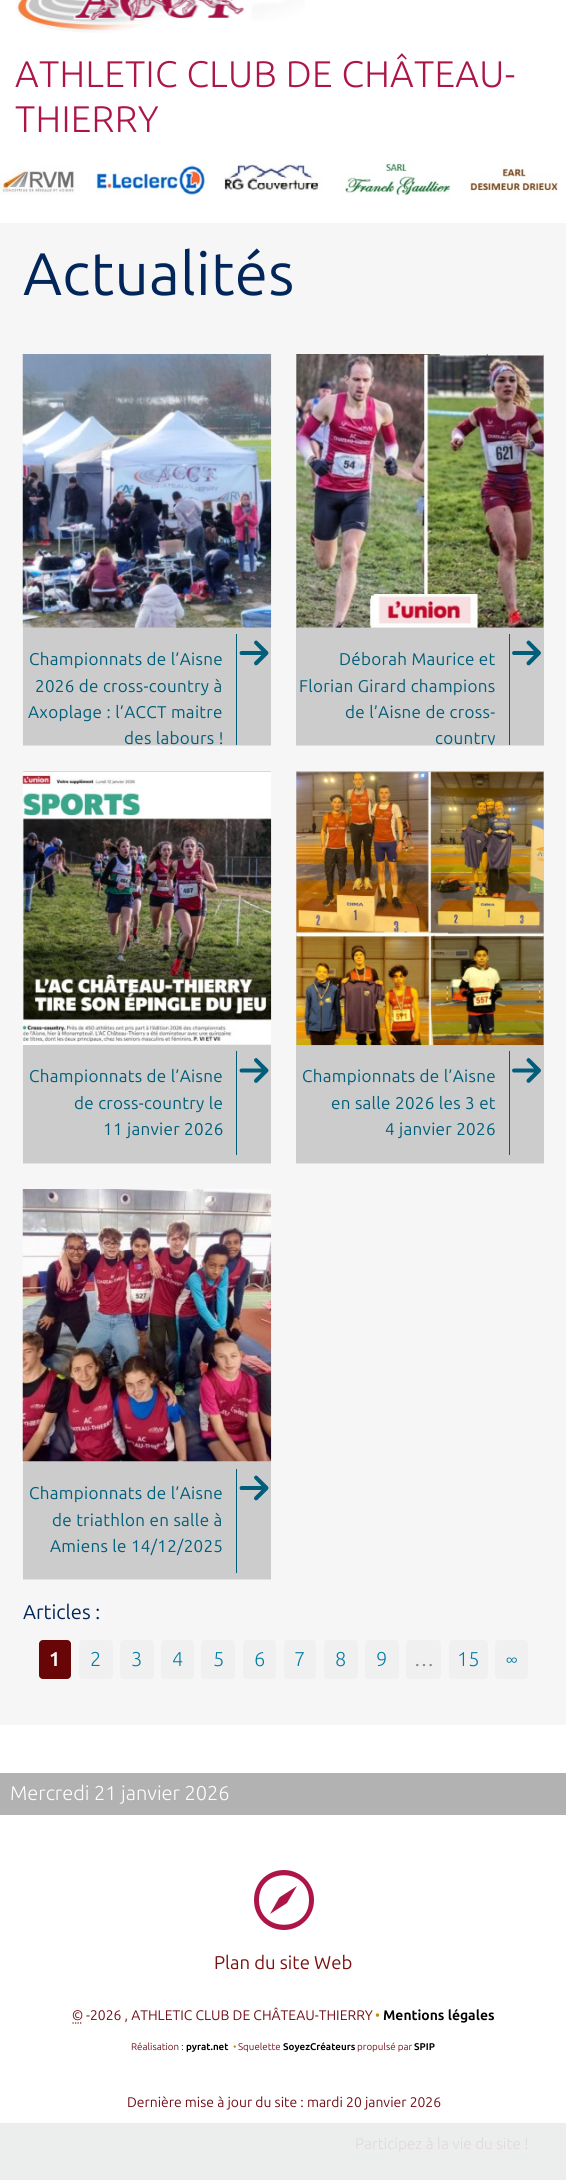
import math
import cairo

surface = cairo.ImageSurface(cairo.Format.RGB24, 566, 2180)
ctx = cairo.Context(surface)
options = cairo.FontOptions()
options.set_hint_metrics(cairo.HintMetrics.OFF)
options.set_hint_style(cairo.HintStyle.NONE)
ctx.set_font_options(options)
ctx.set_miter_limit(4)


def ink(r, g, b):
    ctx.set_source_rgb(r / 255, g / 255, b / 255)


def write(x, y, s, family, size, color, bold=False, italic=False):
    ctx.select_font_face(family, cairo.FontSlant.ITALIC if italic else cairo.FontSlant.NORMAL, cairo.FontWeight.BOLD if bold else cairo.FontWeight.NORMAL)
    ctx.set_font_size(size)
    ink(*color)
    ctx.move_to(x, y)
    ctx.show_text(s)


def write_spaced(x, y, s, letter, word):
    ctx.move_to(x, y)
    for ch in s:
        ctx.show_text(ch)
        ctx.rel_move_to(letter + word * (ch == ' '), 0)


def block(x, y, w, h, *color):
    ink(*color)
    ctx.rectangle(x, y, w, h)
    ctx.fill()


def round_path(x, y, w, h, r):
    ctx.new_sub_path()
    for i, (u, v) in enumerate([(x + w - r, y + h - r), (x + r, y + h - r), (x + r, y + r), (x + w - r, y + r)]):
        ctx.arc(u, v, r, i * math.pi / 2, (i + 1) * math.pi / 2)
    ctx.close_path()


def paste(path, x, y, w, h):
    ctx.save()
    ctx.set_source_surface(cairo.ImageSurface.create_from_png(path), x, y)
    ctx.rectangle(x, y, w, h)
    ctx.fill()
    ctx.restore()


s1 = dict(family="Ubuntu", size=20, color=(2, 38, 90))
s2 = dict(family="Ubuntu", size=20, color=(246, 246, 246), bold=True)
s3 = dict(family="Ubuntu Light", size=20, color=(1, 124, 165))
s4 = dict(family="Ubuntu", size=20, color=(136, 136, 136))
s5 = dict(family="Ubuntu Light", size=20, color=(255, 255, 255))
s6 = dict(family="Ubuntu", size=18.5, color=(121, 17, 17))
s7 = dict(family="Ubuntu", size=13.9, color=(112, 14, 23), italic=True)
s8 = dict(family="Ubuntu", size=13.9, color=(112, 14, 23))
s9 = dict(family="Ubuntu", size=13.9, color=(195, 143, 6))
s10 = dict(family="Ubuntu", size=13.9, color=(0, 0, 0), bold=True)
s11 = dict(family="Ubuntu", size=9.75, color=(112, 14, 23))
s12 = dict(family="Ubuntu", size=9.75, color=(0, 0, 0), bold=True)
s13 = dict(family="Ubuntu", size=9.75, color=(195, 143, 6))
s14 = dict(family="Ubuntu Light", size=15.4, color=(224, 215, 216))

ink(236, 237, 237)
ctx.paint()
block(0, 0, 566, 223, 255, 255, 255)
paste("pic1.png", 251, 0, 54, 21)
paste("pic2.png", 16, 0, 229, 33)
ctx.select_font_face("Ubuntu Light")
ctx.set_font_size(37)
ink(173, 20, 73)
write_spaced(15, 87, "ATHLETIC CLUB DE CHÂTEAU-", 0.3, 0)
write_spaced(15, 132, "THIERRY", 0.3, 0)
paste("pic3.png", 0, 160, 561, 36)
block(0, 223, 566, 1502, 246, 246, 246)
ctx.select_font_face("Ubuntu")
ctx.set_font_size(60)
ink(2, 38, 90)
write_spaced(23, 295, "Actualités", 0.3, 0)
block(23, 627, 248, 118, 204, 204, 204)
paste("pic4.png", 22, 354, 250, 274)
block(23, 745, 248, 1, 225, 225, 225)
block(236, 634, 1, 111, 0, 94, 122)
ctx.set_font_size(17)
write_spaced(29, 665, "Championnats de l’Aisne", 0.3, 0)
write_spaced(35, 692, "2026 de cross-country à", 0.3, 0)
write_spaced(28, 718, "Axoplage : l’ACCT maitre", 0.3, 0)
write_spaced(124, 744, "des labours !", 0.3, 0)
paste("pic5.png", 239, 640, 30, 26)
block(296, 354, 248, 391, 204, 204, 204)
paste("pic6.png", 296, 354, 248, 274)
block(296, 745, 248, 1, 225, 225, 225)
block(509, 634, 1, 111, 0, 94, 122)
write_spaced(339, 665, "Déborah Maurice et", 0.3, 0)
write_spaced(299, 692, "Florian Girard champions", 0.3, 0)
write_spaced(345, 718, "de l’Aisne de cross-", 0.3, 0)
ctx.save()
ctx.rectangle(296, 628, 248, 117)
ctx.clip()
write_spaced(435, 744, "country", 0.3, 0)
ctx.restore()
paste("pic7.png", 512, 640, 29, 26)
block(23, 771, 248, 392, 204, 204, 204)
paste("pic8.png", 22, 771, 250, 274)
block(23, 1163, 248, 1, 225, 225, 225)
block(236, 1051, 1, 104, 0, 94, 122)
write_spaced(29, 1082, "Championnats de l’Aisne", 0.3, 0)
write_spaced(74, 1109, "de cross-country le", 0.3, 0)
write_spaced(103, 1135, "11 janvier 2026", 0.3, 0)
paste("pic9.png", 239, 1058, 30, 25)
block(296, 771, 248, 392, 204, 204, 204)
paste("pic10.png", 296, 771, 248, 275)
block(296, 1163, 248, 1, 225, 225, 225)
block(509, 1051, 1, 104, 0, 94, 122)
write_spaced(302, 1082, "Championnats de l’Aisne", 0.3, 0)
write_spaced(331, 1109, "en salle 2026 les 3 et", 0.3, 0)
write_spaced(385, 1135, "4 janvier 2026", 0.3, 0)
paste("pic11.png", 512, 1058, 29, 25)
block(23, 1461, 248, 118, 204, 204, 204)
paste("pic12.png", 22, 1189, 250, 273)
block(23, 1579, 248, 1, 225, 225, 225)
block(236, 1469, 1, 104, 0, 94, 122)
write_spaced(29, 1499, "Championnats de l’Aisne", 0.3, 0)
write_spaced(52, 1526, "de triathlon en salle à", 0.3, 0)
write_spaced(50, 1552, "Amiens le 14/12/2025", 0.3, 0)
paste("pic5.png", 239, 1475, 30, 26)
write(23, 1619, "Articles :", **s1)
ink(104, 5, 7)
round_path(39, 1640, 32, 39, 4)
ctx.fill()
write(49, 1666, "1", **s2)
ink(240, 240, 240)
round_path(79, 1640, 34, 39, 4)
ctx.fill()
write(90, 1666, "2", **s3)
ink(240, 240, 240)
round_path(120, 1640, 34, 39, 4)
ctx.fill()
write(131, 1666, "3", **s3)
ink(240, 240, 240)
round_path(161, 1640, 33, 39, 4)
ctx.fill()
write(172, 1666, "4", **s3)
ink(240, 240, 240)
round_path(201, 1640, 34, 39, 4)
ctx.fill()
write(213, 1666, "5", **s3)
ink(240, 240, 240)
round_path(243, 1640, 33, 39, 4)
ctx.fill()
write(254, 1666, "6", **s3)
ink(240, 240, 240)
round_path(284, 1640, 32, 39, 4)
ctx.fill()
write(294, 1666, "7", **s3)
ink(240, 240, 240)
round_path(324, 1640, 34, 39, 4)
ctx.fill()
write(335, 1666, "8", **s3)
ink(240, 240, 240)
round_path(365, 1640, 34, 39, 4)
ctx.fill()
write(376, 1666, "9", **s3)
ink(240, 240, 240)
round_path(449, 1640, 39, 39, 4)
ctx.fill()
write(457, 1666, "15", **s3)
ink(240, 240, 240)
round_path(495, 1640, 33, 39, 4)
ctx.fill()
write(506, 1666, "∞", **s3)
ink(240, 240, 240)
round_path(406, 1640, 35, 39, 4)
ctx.fill()
write(414, 1666, "…", **s4)
block(0, 1725, 566, 398, 255, 255, 255)
block(0, 1773, 566, 42, 178, 178, 178)
write(10, 1800, "Mercredi 21 janvier 2026", **s5)
ink(173, 20, 73)
ctx.new_path()
ctx.move_to(254, 1900)
ctx.curve_to(254, 1883, 267, 1870, 284, 1870)
ctx.curve_to(300, 1870, 314, 1883, 314, 1900)
ctx.curve_to(314, 1917, 300, 1930, 284, 1930)
ctx.curve_to(267, 1930, 254, 1917, 254, 1900)
ctx.close_path()
ctx.move_to(259, 1900)
ctx.curve_to(259, 1933, 309, 1933, 309, 1900)
ctx.curve_to(309, 1867, 259, 1867, 259, 1900)
ctx.close_path()
ctx.move_to(279, 1898)
ctx.line_to(280, 1897)
ctx.line_to(297, 1886)
ctx.line_to(287, 1903)
ctx.line_to(270, 1914)
ctx.close_path()
ctx.fill()
write(214, 1969, "Plan du site Web", **s6)
write(72, 2020, "©", **s7)
ctx.new_path()
ctx.move_to(72.5, 2023)
ctx.line_to(82.5, 2023)
ctx.set_line_width(1.2)
ctx.set_dash([1.25, 1.25])
ctx.stroke()
write(86, 2020, "-2026 , ATHLETIC CLUB DE CHÂTEAU-THIERRY", **s8)
write(375, 2020, "•", **s9)
write(383, 2020, "Mentions légales", **s10)
write(131, 2050, "Réalisation :", **s11)
write(186, 2050, "pyrat.net", **s12)
write(233, 2050, "•", **s13)
write(238, 2050, "Squelette", **s11)
write(283, 2050, "SoyezCréateurs", **s12)
write(357, 2050, "propulsé par", **s11)
write(414, 2050, "SPIP", **s12)
write(127, 2107, "Dernière mise à jour du site : mardi 20 janvier 2026", **s8)
write(355, 2149, "Participez à la vie du site !", **s14)
surface.write_to_png("screenshot.png")
